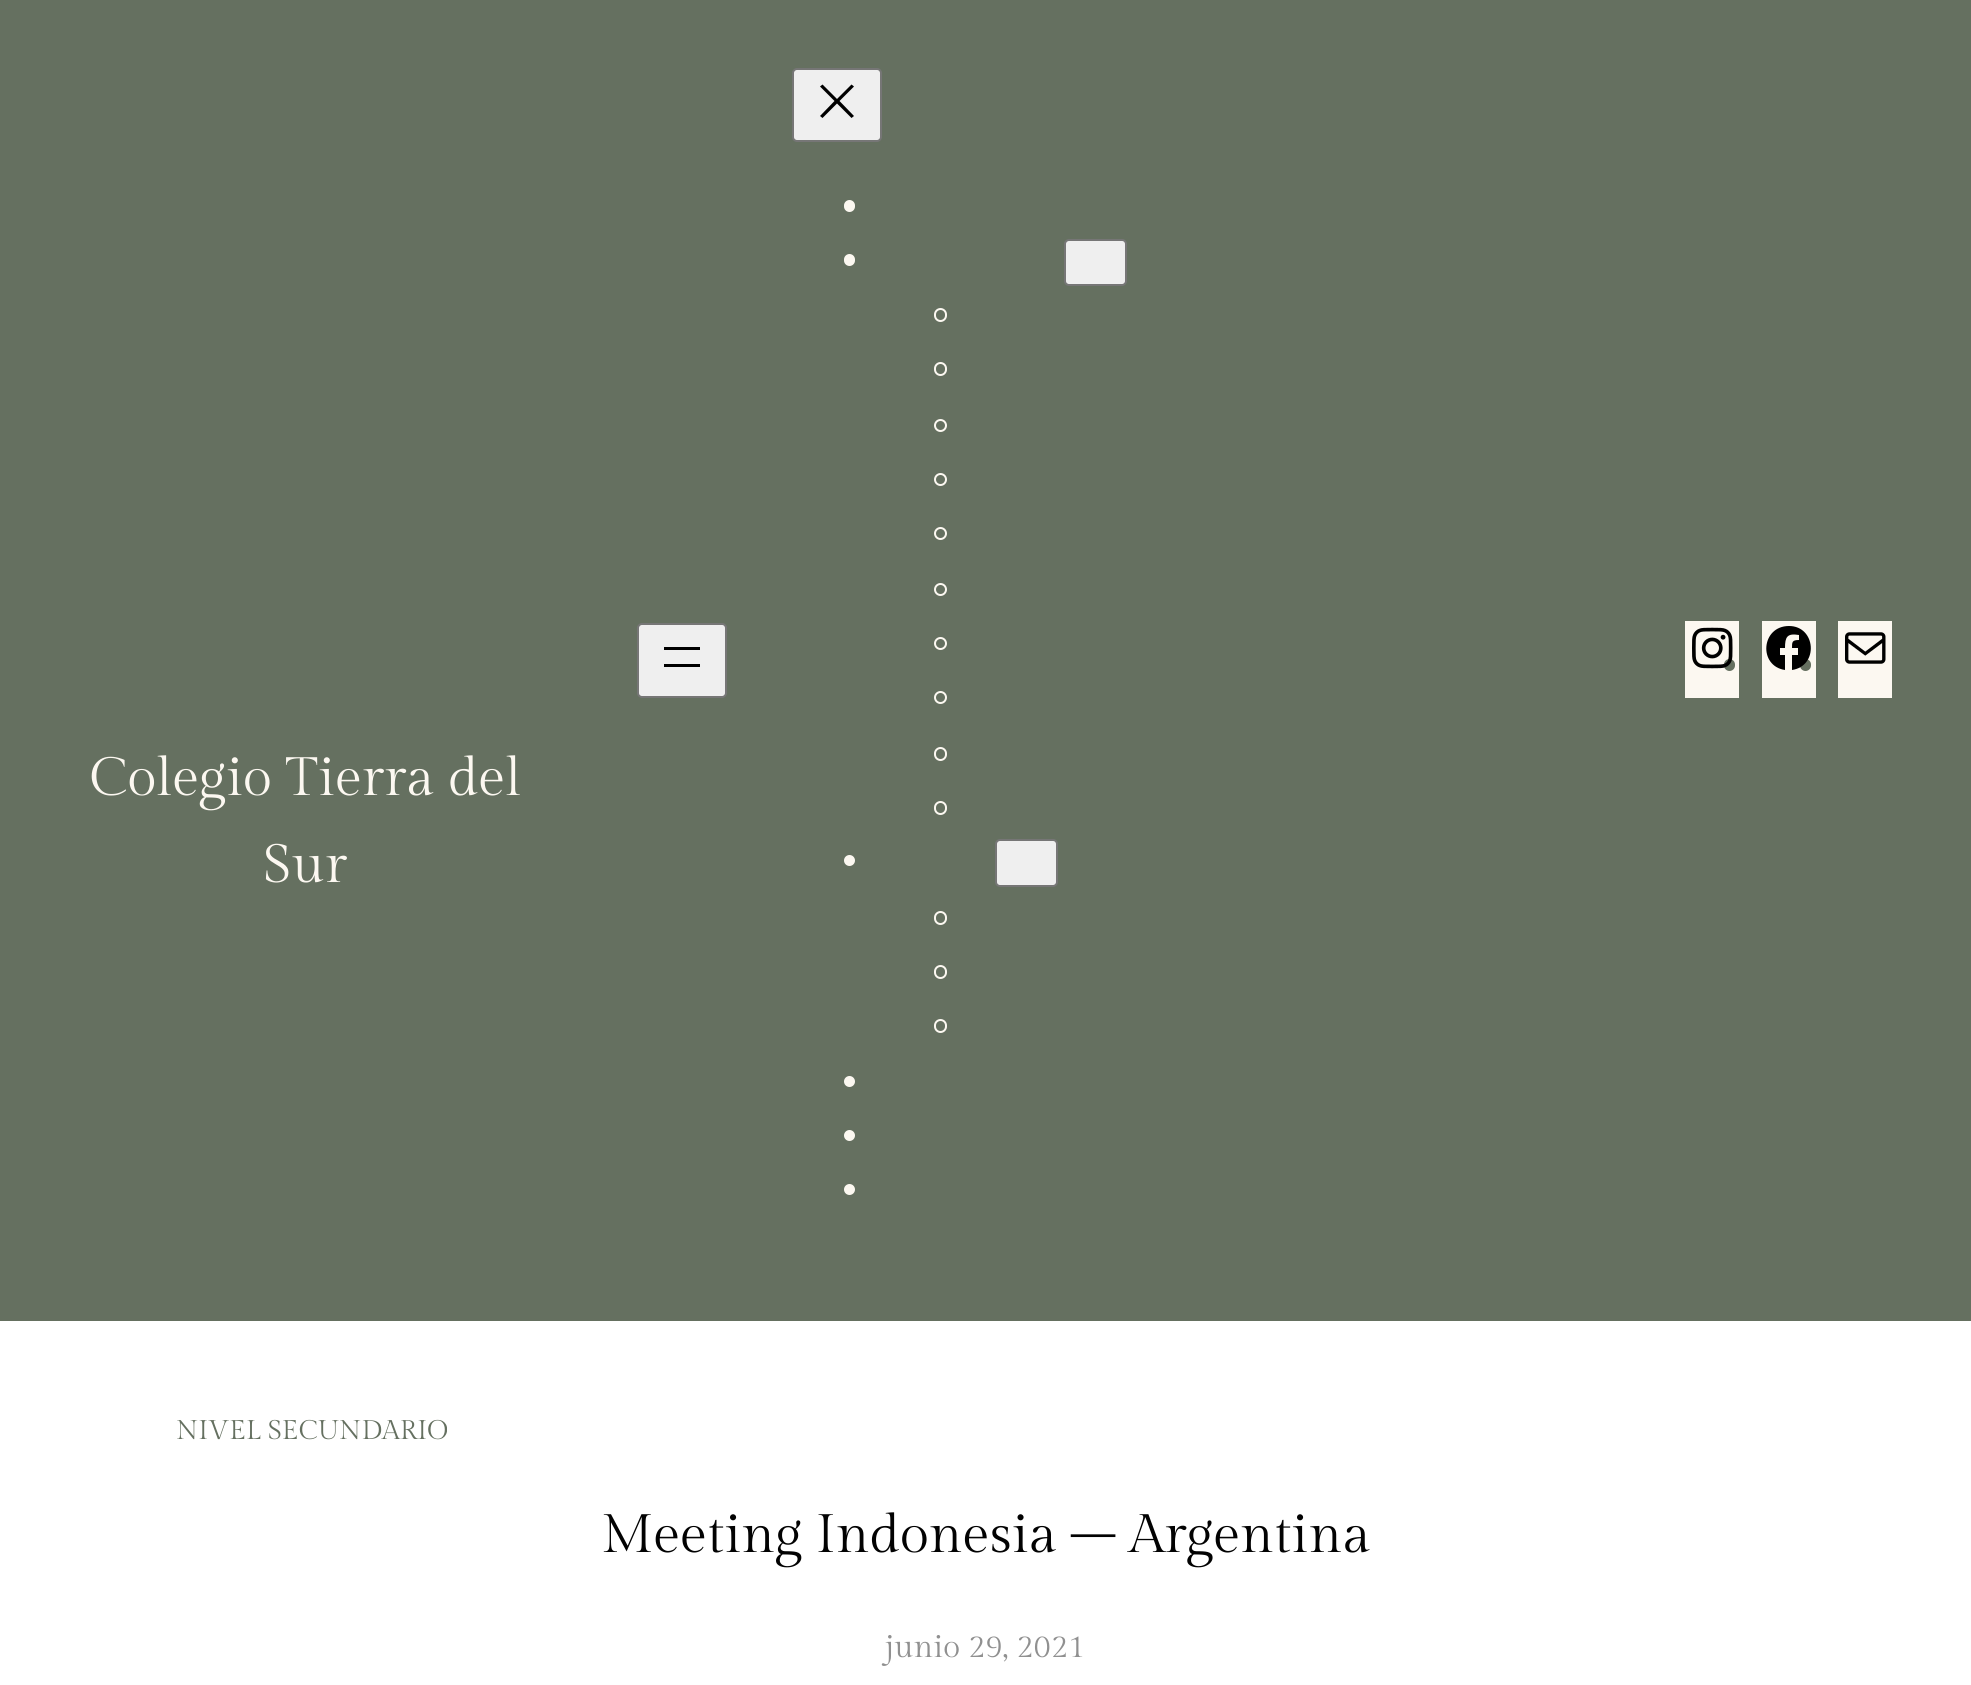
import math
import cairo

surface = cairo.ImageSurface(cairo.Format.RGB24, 1971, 1685)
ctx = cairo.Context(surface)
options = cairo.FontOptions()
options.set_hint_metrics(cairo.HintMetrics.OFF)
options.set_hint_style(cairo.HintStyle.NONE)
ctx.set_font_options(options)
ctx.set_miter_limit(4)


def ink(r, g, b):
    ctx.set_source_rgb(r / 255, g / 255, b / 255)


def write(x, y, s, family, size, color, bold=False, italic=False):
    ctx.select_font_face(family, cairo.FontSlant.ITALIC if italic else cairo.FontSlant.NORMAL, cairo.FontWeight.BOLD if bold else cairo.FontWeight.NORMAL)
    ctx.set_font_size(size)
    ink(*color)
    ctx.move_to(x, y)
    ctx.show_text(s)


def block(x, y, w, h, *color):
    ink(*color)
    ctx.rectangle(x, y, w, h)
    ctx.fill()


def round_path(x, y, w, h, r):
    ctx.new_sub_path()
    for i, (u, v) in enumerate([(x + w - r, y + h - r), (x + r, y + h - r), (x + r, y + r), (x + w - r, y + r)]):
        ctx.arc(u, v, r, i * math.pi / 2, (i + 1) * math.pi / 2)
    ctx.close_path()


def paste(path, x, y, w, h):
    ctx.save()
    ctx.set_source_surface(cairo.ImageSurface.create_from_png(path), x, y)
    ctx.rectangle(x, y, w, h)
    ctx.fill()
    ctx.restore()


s1 = dict(family="Gilda Display", size=54, color=(252, 248, 241))
s2 = dict(family="Gilda Display", size=27, color=(101, 112, 96))
s3 = dict(family="Gilda Display", size=54, color=(2, 2, 2))
s4 = dict(family="Gilda Display", size=31.5, color=(144, 144, 144))

ink(255, 255, 255)
ctx.paint()
block(0, 0, 1971, 1321, 101, 112, 96)
ink(239, 239, 239)
round_path(638, 624, 88, 73, 4)
ctx.fill_preserve()
ink(118, 118, 118)
ctx.stroke()
block(664, 647, 36, 3, 0, 0, 0)
block(664, 664, 36, 3, 0, 0, 0)
ink(239, 239, 239)
round_path(793, 69, 88, 72, 4)
ctx.fill_preserve()
ink(118, 118, 118)
ctx.stroke()
ink(0, 0, 0)
ctx.new_path()
ctx.move_to(839.5, 101)
ctx.line_to(854, 86.5)
ctx.line_to(851.5, 84.5)
ctx.line_to(837, 99)
ctx.line_to(822.5, 84.5)
ctx.line_to(820, 86.5)
ctx.line_to(834.5, 101)
ctx.line_to(820, 116)
ctx.line_to(822.5, 118)
ctx.line_to(837, 103.5)
ctx.line_to(851.5, 118)
ctx.line_to(854, 116)
ctx.close_path()
ctx.fill()
ink(252, 248, 241)
round_path(844, 200, 11, 12, 5.5)
ctx.fill()
round_path(844, 254, 11, 12, 5.5)
ctx.fill()
ink(239, 239, 239)
round_path(1065, 240, 61, 45, 4)
ctx.fill_preserve()
ink(118, 118, 118)
ctx.stroke()
round_path(935, 309, 11, 12, 5.5)
ink(252, 248, 241)
ctx.stroke()
round_path(935, 363, 11, 12, 5.5)
ctx.stroke()
ctx.arc(940.5, 425.5, 5.5, 0, 2 * math.pi)
ctx.stroke()
ctx.arc(940.5, 479.5, 5.5, 0, 2 * math.pi)
ctx.stroke()
ctx.arc(940.5, 533.5, 5.5, 0, 2 * math.pi)
ctx.stroke()
ctx.arc(940.5, 589.5, 5.5, 0, 2 * math.pi)
ctx.stroke()
ctx.arc(940.5, 643.5, 5.5, 0, 2 * math.pi)
ctx.stroke()
ctx.arc(940.5, 697.5, 5.5, 0, 2 * math.pi)
ctx.stroke()
round_path(935, 748, 11, 12, 5.5)
ctx.stroke()
round_path(935, 802, 11, 12, 5.5)
ctx.stroke()
ctx.arc(849.5, 860.5, 5.5, 0, 2 * math.pi)
ctx.fill()
ink(239, 239, 239)
round_path(996, 840, 61, 46, 4)
ctx.fill_preserve()
ink(118, 118, 118)
ctx.stroke()
round_path(935, 912, 11, 12, 5.5)
ink(252, 248, 241)
ctx.stroke()
round_path(935, 966, 11, 12, 5.5)
ctx.stroke()
round_path(935, 1020, 11, 12, 5.5)
ctx.stroke()
ctx.arc(849.5, 1081.5, 5.5, 0, 2 * math.pi)
ctx.fill()
ctx.arc(849.5, 1135.5, 5.5, 0, 2 * math.pi)
ctx.fill()
ctx.arc(849.5, 1189.5, 5.5, 0, 2 * math.pi)
ctx.fill()
block(1685, 621, 54, 77, 252, 248, 241)
ink(101, 112, 96)
round_path(1724, 659, 11, 12, 5.5)
ctx.fill()
paste("pic1.png", 1692, 627, 41, 42)
block(1762, 621, 54, 77, 252, 248, 241)
ink(101, 112, 96)
round_path(1800, 659, 11, 12, 5.5)
ctx.fill()
ink(0, 0, 0)
ctx.new_path()
ctx.move_to(1789, 626)
ctx.curve_to(1761, 626, 1758, 666, 1785, 670)
ctx.line_to(1785, 655)
ctx.line_to(1780, 655)
ctx.line_to(1780, 648)
ctx.line_to(1785, 648)
ctx.curve_to(1785, 637, 1787, 633, 1799, 635)
ctx.line_to(1799, 640)
ctx.curve_to(1792, 640, 1792, 642, 1792, 648)
ctx.line_to(1798, 648)
ctx.line_to(1798, 655)
ctx.line_to(1792, 655)
ctx.line_to(1792, 670)
ctx.curve_to(1819, 666, 1816, 626, 1789, 626)
ctx.close_path()
ctx.fill()
block(1838, 621, 54, 77, 252, 248, 241)
paste("pic2.png", 1845, 632, 41, 32)
write(89, 795, "Colegio Tierra del", **s1)
write(263, 882, "Sur", **s1)
write(176, 1439, "NIVEL SECUNDARIO", **s2)
write(601, 1552, "Meeting Indonesia – Argentina", **s3)
write(885, 1657, "junio 29, 2021", **s4)
surface.write_to_png("screenshot.png")
